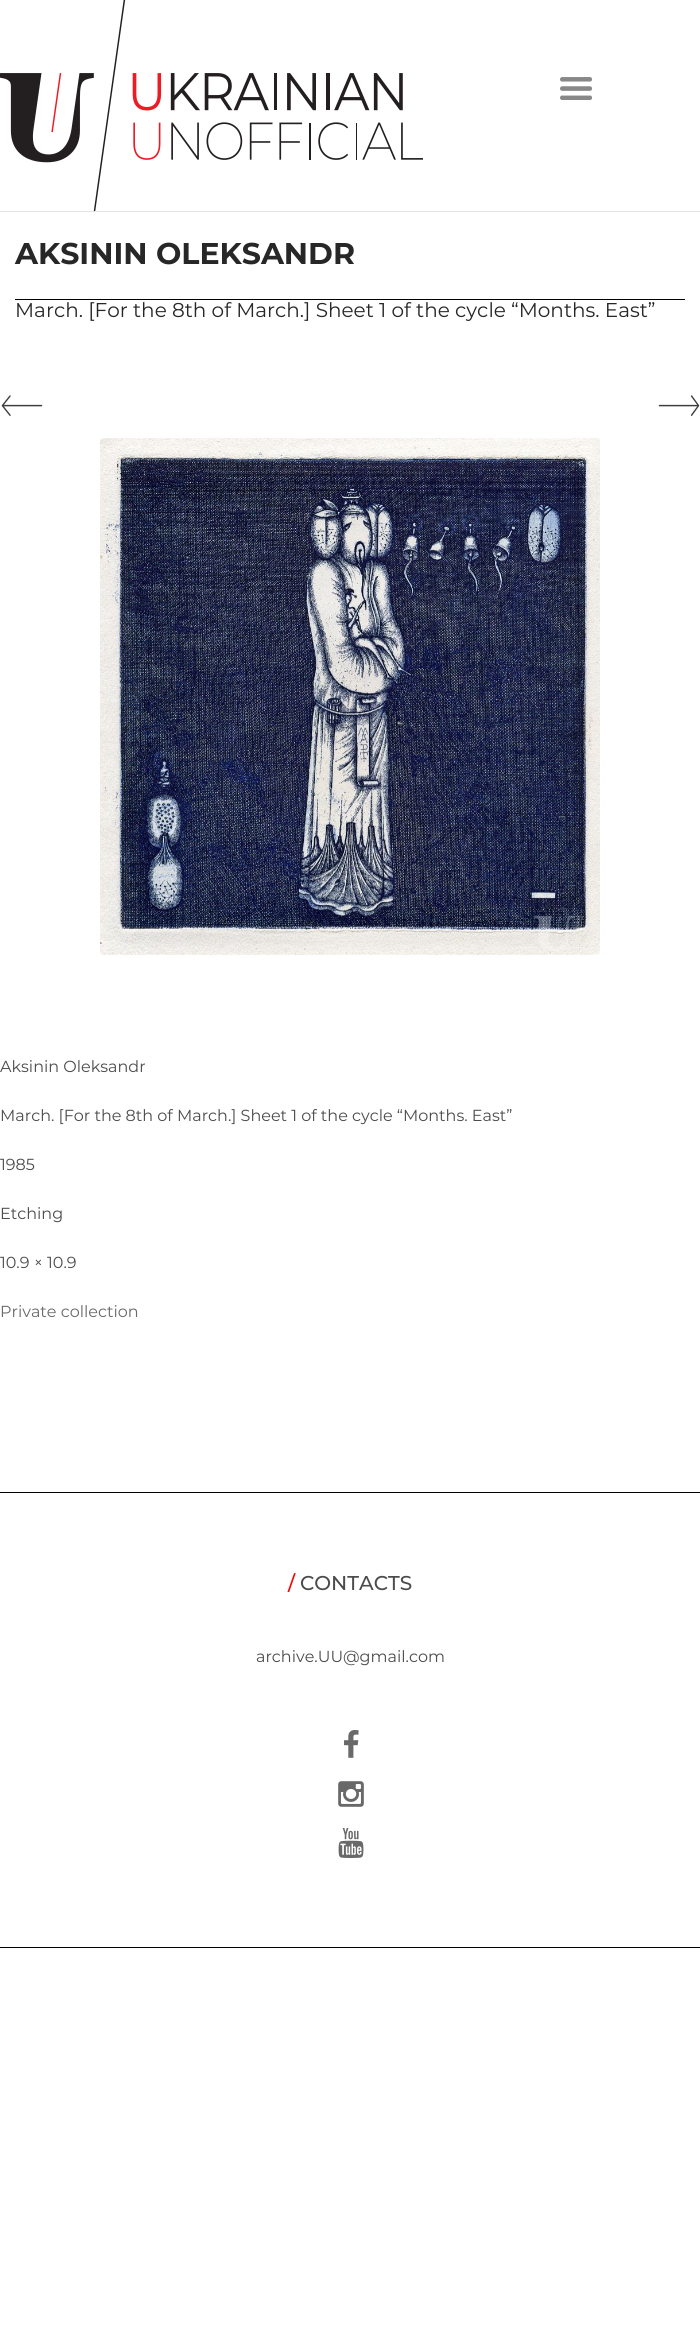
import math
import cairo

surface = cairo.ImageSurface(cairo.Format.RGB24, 700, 2327)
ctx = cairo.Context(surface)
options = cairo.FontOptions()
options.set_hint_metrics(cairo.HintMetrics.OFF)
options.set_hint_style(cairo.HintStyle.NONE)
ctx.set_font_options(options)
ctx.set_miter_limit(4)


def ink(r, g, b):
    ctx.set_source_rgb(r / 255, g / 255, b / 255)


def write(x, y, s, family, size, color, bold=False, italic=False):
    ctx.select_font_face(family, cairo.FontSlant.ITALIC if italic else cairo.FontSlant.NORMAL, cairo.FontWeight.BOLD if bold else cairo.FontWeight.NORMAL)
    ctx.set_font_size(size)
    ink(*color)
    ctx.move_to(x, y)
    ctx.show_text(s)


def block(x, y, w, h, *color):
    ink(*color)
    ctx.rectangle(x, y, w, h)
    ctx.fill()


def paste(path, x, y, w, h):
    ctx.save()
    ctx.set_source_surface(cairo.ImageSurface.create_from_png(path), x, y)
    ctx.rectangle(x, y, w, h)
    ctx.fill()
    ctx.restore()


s1 = dict(family="Montserrat", size=30, color=(39, 39, 39), bold=True)
s2 = dict(family="Montserrat", size=20, color=(39, 39, 39))
s3 = dict(family="Montserrat", size=16, color=(76, 76, 76))
s4 = dict(family="Montserrat", size=16, color=(105, 105, 105))
s5 = dict(family="Montserrat Medium", size=20, color=(255, 0, 0))
s6 = dict(family="Montserrat Medium", size=20, color=(76, 76, 76))

ink(255, 255, 255)
ctx.paint()
block(0, 211, 700, 1, 228, 228, 228)
paste("pic1.png", 0, 0, 423, 211)
paste("pic2.png", 560, 77, 32, 23)
write(15, 264, "AKSININ OLEKSANDR", **s1)
block(15, 299, 670, 1, 0, 0, 0)
write(15, 317, "March. [For the 8th of March.] Sheet 1 of the cycle “Months. East”", **s2)
block(0, 1492, 700, 1, 0, 0, 0)
paste("pic3.png", 1, 395, 42, 21)
paste("pic4.png", 658, 395, 42, 21)
paste("pic5.png", 100, 438, 500, 517)
write(0, 1072, "Aksinin Oleksandr", **s3)
write(0, 1121, "March. [For the 8th of March.] Sheet 1 of the cycle “Months. East”", **s3)
write(0, 1170, "1985", **s3)
write(0, 1219, "Etching", **s3)
write(0, 1268, "10.9 × 10.9", **s3)
write(0, 1317, "Private collection", **s4)
block(0, 1947, 700, 1, 0, 0, 0)
write(288, 1590, "/", **s5)
write(300, 1590, "CONTACTS", **s6)
write(256, 1662, "archive.UU@gmail.com", **s3)
paste("pic6.png", 344, 1730, 15, 28)
paste("pic7.png", 338, 1781, 26, 26)
paste("pic8.png", 338, 1828, 26, 30)
surface.write_to_png("screenshot.png")
